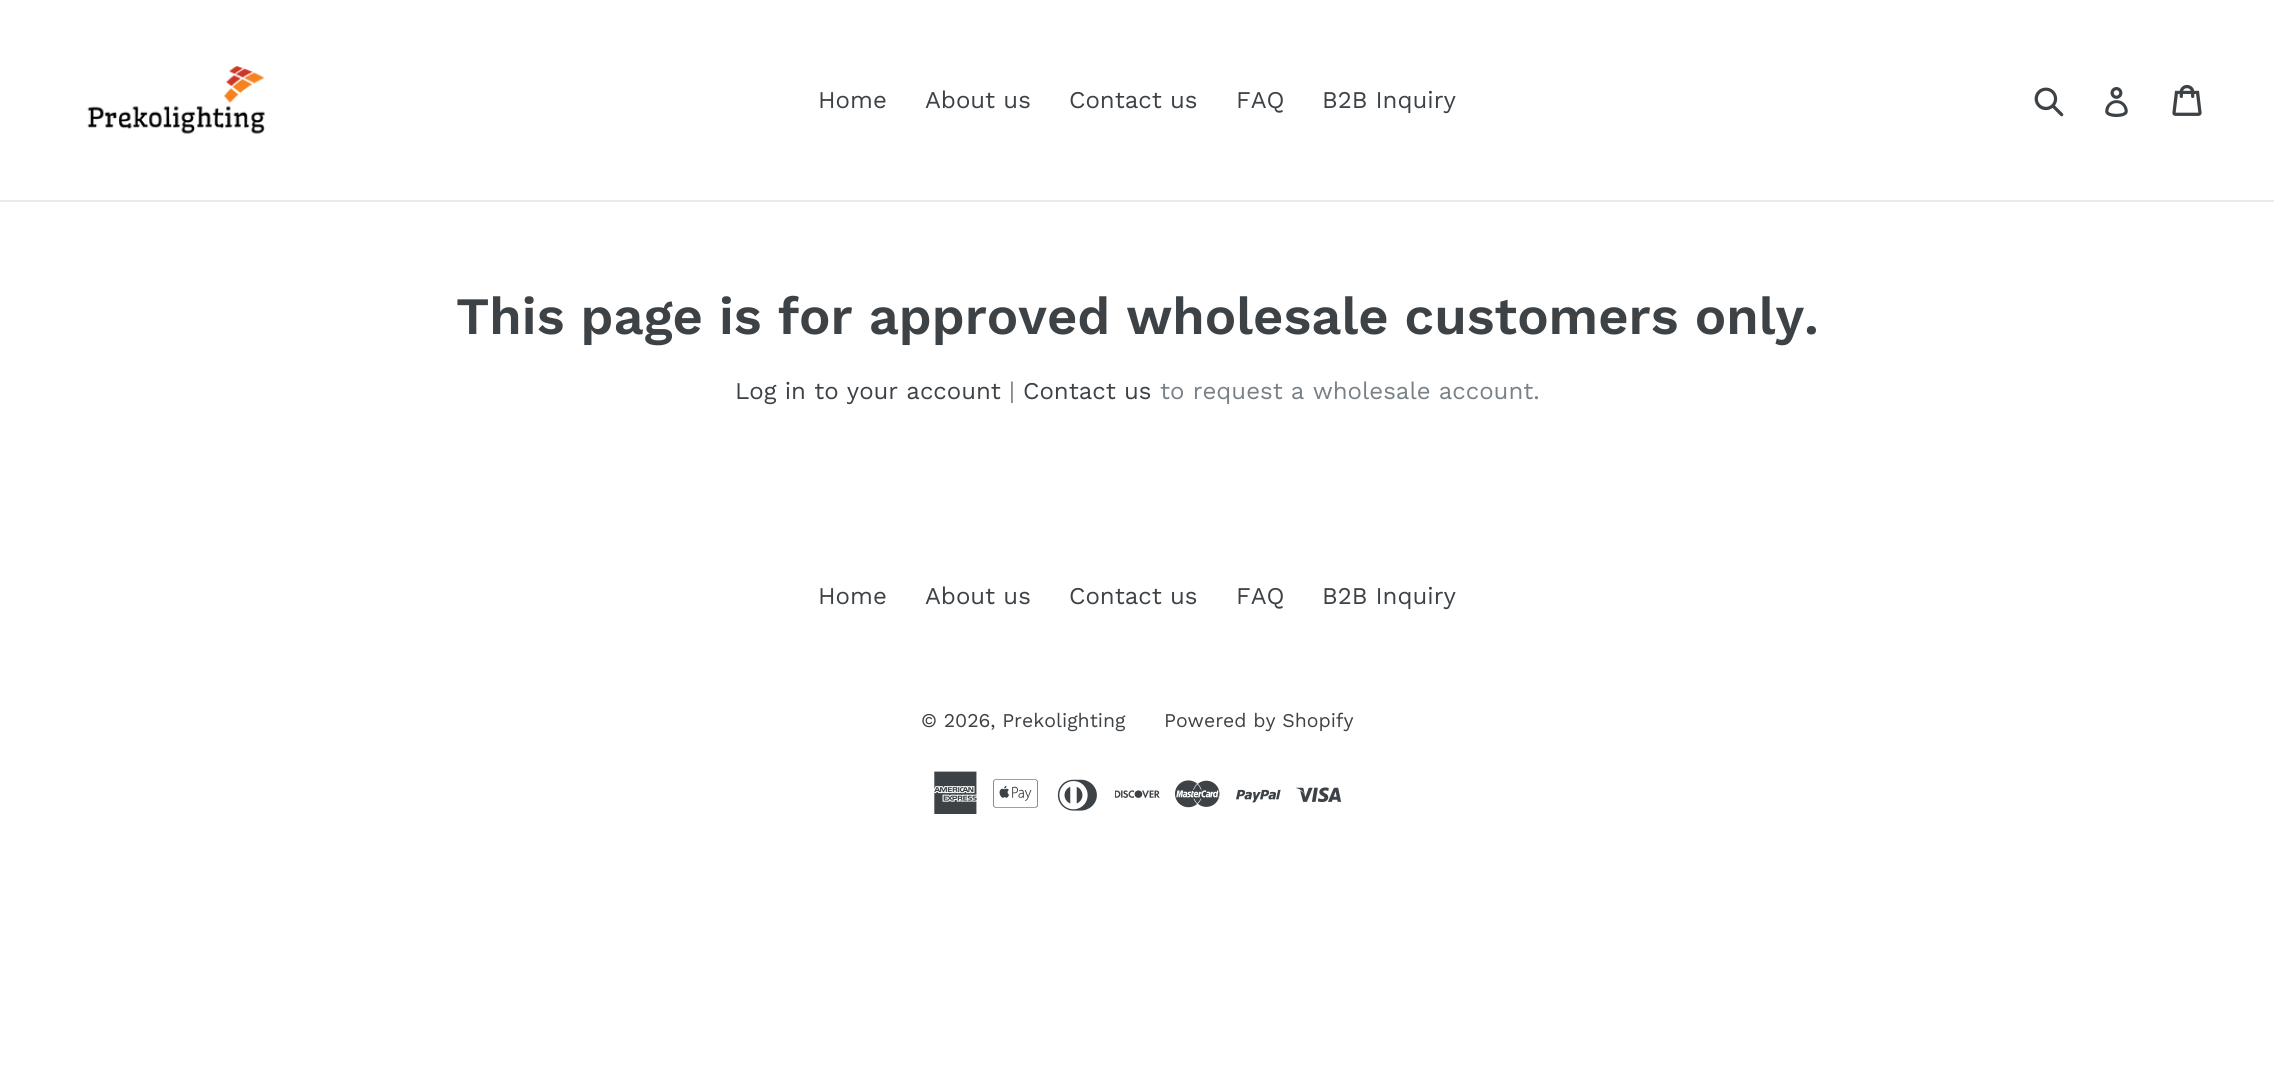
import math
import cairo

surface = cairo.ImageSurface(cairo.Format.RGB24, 2274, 1086)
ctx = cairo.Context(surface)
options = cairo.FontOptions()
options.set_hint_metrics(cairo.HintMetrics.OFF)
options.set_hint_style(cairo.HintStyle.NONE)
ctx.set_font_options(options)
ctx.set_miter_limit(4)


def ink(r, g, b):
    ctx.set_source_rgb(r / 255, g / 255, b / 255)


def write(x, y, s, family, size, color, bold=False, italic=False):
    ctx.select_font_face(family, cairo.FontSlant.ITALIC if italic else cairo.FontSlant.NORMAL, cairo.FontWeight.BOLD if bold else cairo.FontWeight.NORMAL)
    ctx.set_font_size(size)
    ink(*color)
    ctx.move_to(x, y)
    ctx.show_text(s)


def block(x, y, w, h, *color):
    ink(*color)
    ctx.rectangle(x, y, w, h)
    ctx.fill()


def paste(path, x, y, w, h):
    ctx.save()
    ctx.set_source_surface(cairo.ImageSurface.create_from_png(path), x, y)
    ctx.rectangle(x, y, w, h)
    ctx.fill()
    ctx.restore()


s1 = dict(family="Work Sans", size=24, color=(61, 66, 70))
s2 = dict(family="Work Sans SemiBold", size=52.5, color=(61, 66, 70))
s3 = dict(family="Work Sans", size=24, color=(120, 129, 136))
s4 = dict(family="Work Sans", size=19.5, color=(61, 66, 70))

ink(255, 255, 255)
ctx.paint()
block(0, 200, 2274, 2, 232, 233, 235)
paste("pic1.png", 87, 66, 178, 68)
write(818, 108, "Home", **s1)
write(925, 108, "About us", **s1)
write(1069, 108, "Contact us", **s1)
write(1236, 108, "FAQ", **s1)
write(1322, 108, "B2B Inquiry", **s1)
paste("pic2.png", 2034, 87, 30, 30)
paste("pic3.png", 2105, 87, 23, 30)
paste("pic4.png", 2172, 84, 30, 32)
write(456, 334, "This page is for approved wholesale customers only.", **s2)
write(735, 399, "Log in to your account", **s1)
write(1009, 399, "|", **s3)
write(1023, 399, "Contact us", **s1)
write(1160, 399, "to request a wholesale account.", **s3)
write(818, 604, "Home", **s1)
write(925, 604, "About us", **s1)
write(1069, 604, "Contact us", **s1)
write(1236, 604, "FAQ", **s1)
write(1322, 604, "B2B Inquiry", **s1)
write(921, 727, "© 2026, Prekolighting", **s4)
write(1164, 727, "Powered by Shopify", **s4)
paste("pic5.png", 934, 771, 43, 43)
paste("pic6.png", 993, 779, 45, 29)
paste("pic7.png", 1057, 779, 40, 32)
paste("pic8.png", 1115, 790, 45, 8)
paste("pic9.png", 1175, 780, 45, 28)
paste("pic10.png", 1236, 789, 45, 14)
paste("pic11.png", 1296, 787, 45, 15)
surface.write_to_png("screenshot.png")
